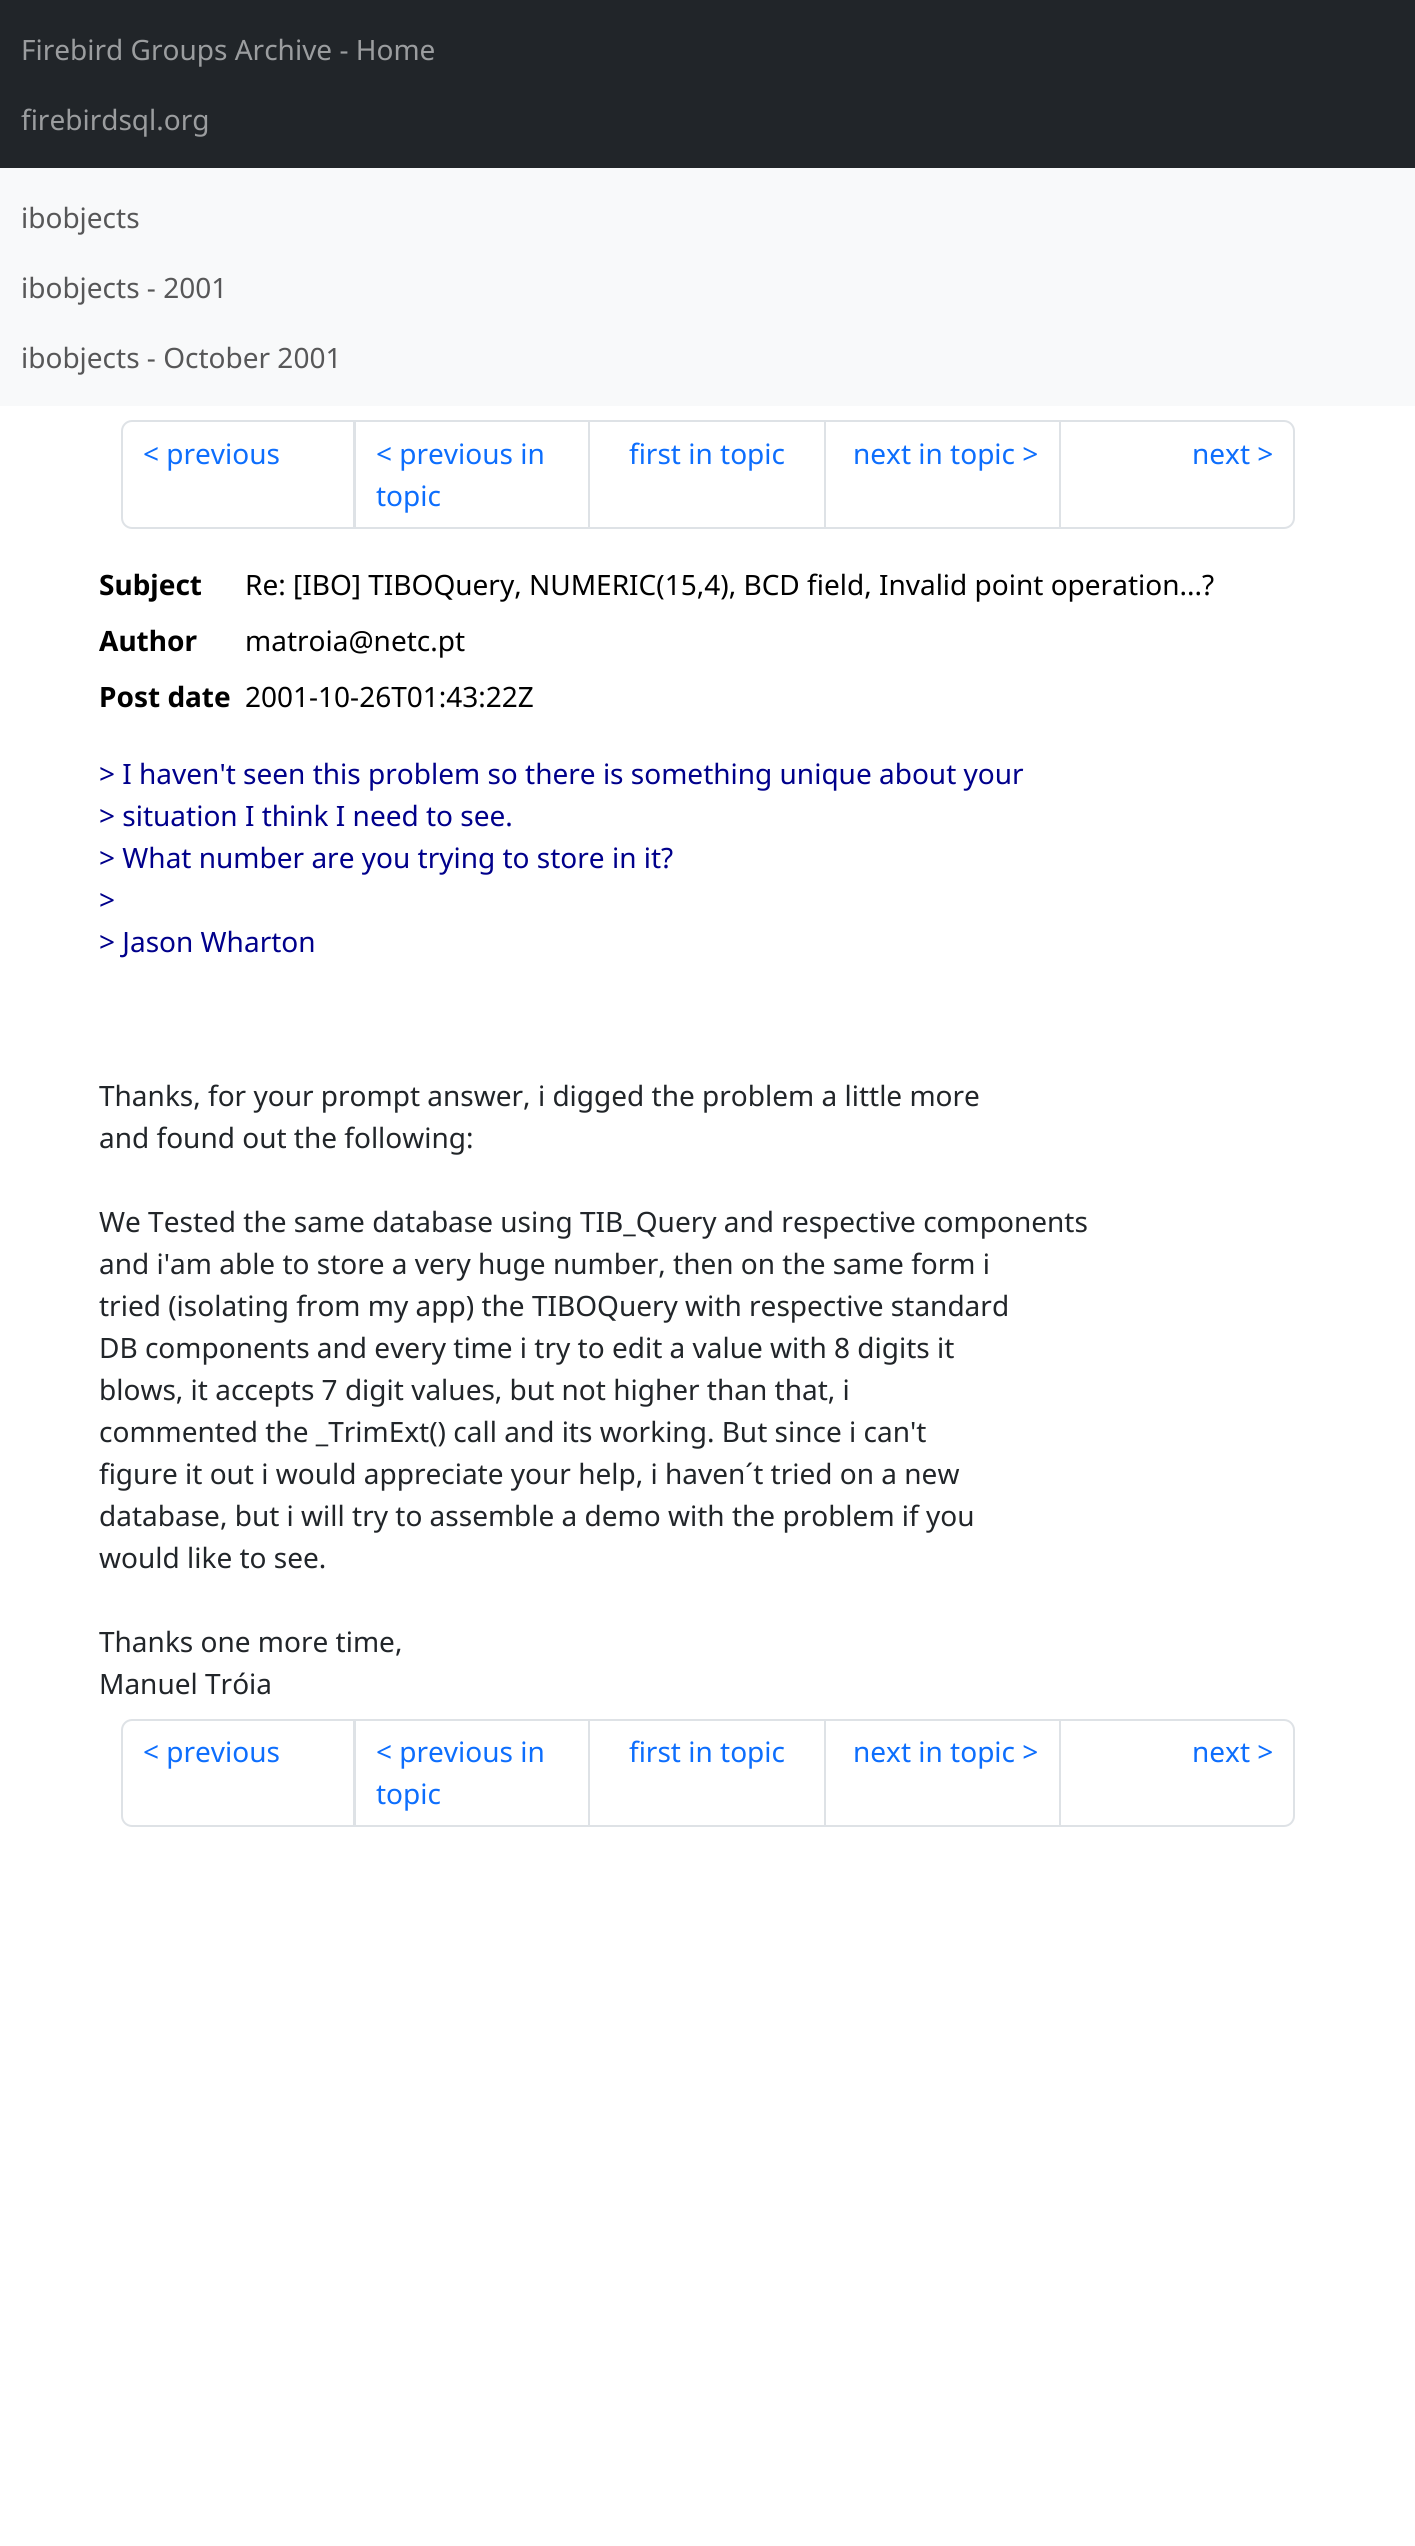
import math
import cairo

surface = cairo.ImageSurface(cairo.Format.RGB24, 1415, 2546)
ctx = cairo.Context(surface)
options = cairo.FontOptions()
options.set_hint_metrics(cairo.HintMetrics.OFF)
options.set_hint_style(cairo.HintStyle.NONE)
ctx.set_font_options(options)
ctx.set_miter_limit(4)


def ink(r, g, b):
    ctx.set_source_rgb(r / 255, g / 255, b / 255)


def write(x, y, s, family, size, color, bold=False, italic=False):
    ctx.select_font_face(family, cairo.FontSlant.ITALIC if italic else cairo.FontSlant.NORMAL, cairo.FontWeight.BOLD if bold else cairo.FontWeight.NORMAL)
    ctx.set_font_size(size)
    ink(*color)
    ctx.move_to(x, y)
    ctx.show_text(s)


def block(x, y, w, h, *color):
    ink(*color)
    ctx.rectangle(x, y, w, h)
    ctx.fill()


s1 = dict(family="Noto Sans", size=28, color=(155, 157, 159))
s2 = dict(family="Noto Sans", size=28, color=(87, 87, 88))
s3 = dict(family="Noto Sans", size=28, color=(13, 110, 253))
s4 = dict(family="Noto Sans", size=28, color=(0, 0, 0), bold=True)
s5 = dict(family="Noto Sans", size=28, color=(0, 0, 0))
s6 = dict(family="Noto Sans", size=28, color=(0, 0, 139))
s7 = dict(family="Noto Sans", size=28, color=(33, 37, 41))

ink(255, 255, 255)
ctx.paint()
block(0, 0, 1415, 168, 33, 37, 41)
write(21, 60, "Firebird Groups Archive - Home", **s1)
write(21, 130, "firebirdsql.org", **s1)
block(0, 168, 1415, 238, 248, 249, 250)
write(21, 228, "ibobjects", **s2)
write(21, 298, "ibobjects - 2001", **s2)
write(21, 368, "ibobjects - October 2001", **s2)
ctx.new_path()
ctx.move_to(132, 421)
ctx.line_to(354, 421)
ctx.line_to(354, 528)
ctx.line_to(132, 528)
ctx.curve_to(126.5, 528, 122, 523.5, 122, 518)
ctx.line_to(122, 431)
ctx.curve_to(122, 425.5, 126.5, 421, 132, 421)
ctx.close_path()
ink(222, 226, 230)
ctx.stroke()
write(143, 464, "< previous", **s3)
ctx.rectangle(355, 421, 234, 107)
ink(222, 226, 230)
ctx.stroke()
write(376, 464, "< previous in", **s3)
write(376, 506, "topic", **s3)
ctx.rectangle(589, 421, 236, 107)
ink(222, 226, 230)
ctx.stroke()
write(629, 464, "first in topic", **s3)
ctx.rectangle(825, 421, 235, 107)
ink(222, 226, 230)
ctx.stroke()
write(853, 464, "next in topic >", **s3)
ink(255, 255, 255)
ctx.new_path()
ctx.move_to(1060, 421)
ctx.line_to(1284, 421)
ctx.curve_to(1289.5, 421, 1294, 425.5, 1294, 431)
ctx.line_to(1294, 518)
ctx.curve_to(1294, 523.5, 1289.5, 528, 1284, 528)
ctx.line_to(1060, 528)
ctx.close_path()
ctx.fill_preserve()
ink(222, 226, 230)
ctx.stroke()
write(1192, 464, "next >", **s3)
write(99, 595, "Subject", **s4)
write(245, 595, "Re: [IBO] TIBOQuery, NUMERIC(15,4), BCD field, Invalid point operation...?", **s5)
write(99, 651, "Author", **s4)
write(245, 651, "matroia@netc.pt", **s5)
write(99, 707, "Post date", **s4)
write(245, 707, "2001-10-26T01:43:22Z", **s5)
write(99, 784, "> I haven't seen this problem so there is something unique about your", **s6)
write(99, 826, "> situation I think I need to see.", **s6)
write(99, 868, "> What number are you trying to store in it?", **s6)
write(99, 910, ">", **s6)
write(99, 952, "> Jason Wharton", **s6)
write(99, 1106, "Thanks, for your prompt answer, i digged the problem a little more", **s7)
write(99, 1148, "and found out the following:", **s7)
write(99, 1232, "We Tested the same database using TIB_Query and respective components", **s7)
write(99, 1274, "and i'am able to store a very huge number, then on the same form i", **s7)
write(99, 1316, "tried (isolating from my app) the TIBOQuery with respective standard", **s7)
write(99, 1358, "DB components and every time i try to edit a value with 8 digits it", **s7)
write(99, 1400, "blows, it accepts 7 digit values, but not higher than that, i", **s7)
write(99, 1442, "commented the _TrimExt() call and its working. But since i can't", **s7)
write(99, 1484, "figure it out i would appreciate your help, i haven´t tried on a new", **s7)
write(99, 1526, "database, but i will try to assemble a demo with the problem if you", **s7)
write(99, 1568, "would like to see.", **s7)
write(99, 1652, "Thanks one more time,", **s7)
write(99, 1694, "Manuel Tróia", **s7)
ctx.new_path()
ctx.move_to(132, 1720)
ctx.line_to(354, 1720)
ctx.line_to(354, 1826)
ctx.line_to(132, 1826)
ctx.curve_to(126.5, 1826, 122, 1821.5, 122, 1816)
ctx.line_to(122, 1730)
ctx.curve_to(122, 1724.5, 126.5, 1720, 132, 1720)
ctx.close_path()
ink(222, 226, 230)
ctx.stroke()
write(143, 1762, "< previous", **s3)
ctx.rectangle(355, 1720, 234, 106)
ink(222, 226, 230)
ctx.stroke()
write(376, 1762, "< previous in", **s3)
write(376, 1804, "topic", **s3)
ctx.rectangle(589, 1720, 236, 106)
ink(222, 226, 230)
ctx.stroke()
write(629, 1762, "first in topic", **s3)
ctx.rectangle(825, 1720, 235, 106)
ink(222, 226, 230)
ctx.stroke()
write(853, 1762, "next in topic >", **s3)
ink(255, 255, 255)
ctx.new_path()
ctx.move_to(1060, 1720)
ctx.line_to(1284, 1720)
ctx.curve_to(1289.5, 1720, 1294, 1724.5, 1294, 1730)
ctx.line_to(1294, 1816)
ctx.curve_to(1294, 1821.5, 1289.5, 1826, 1284, 1826)
ctx.line_to(1060, 1826)
ctx.close_path()
ctx.fill_preserve()
ink(222, 226, 230)
ctx.stroke()
write(1192, 1762, "next >", **s3)
surface.write_to_png("screenshot.png")
